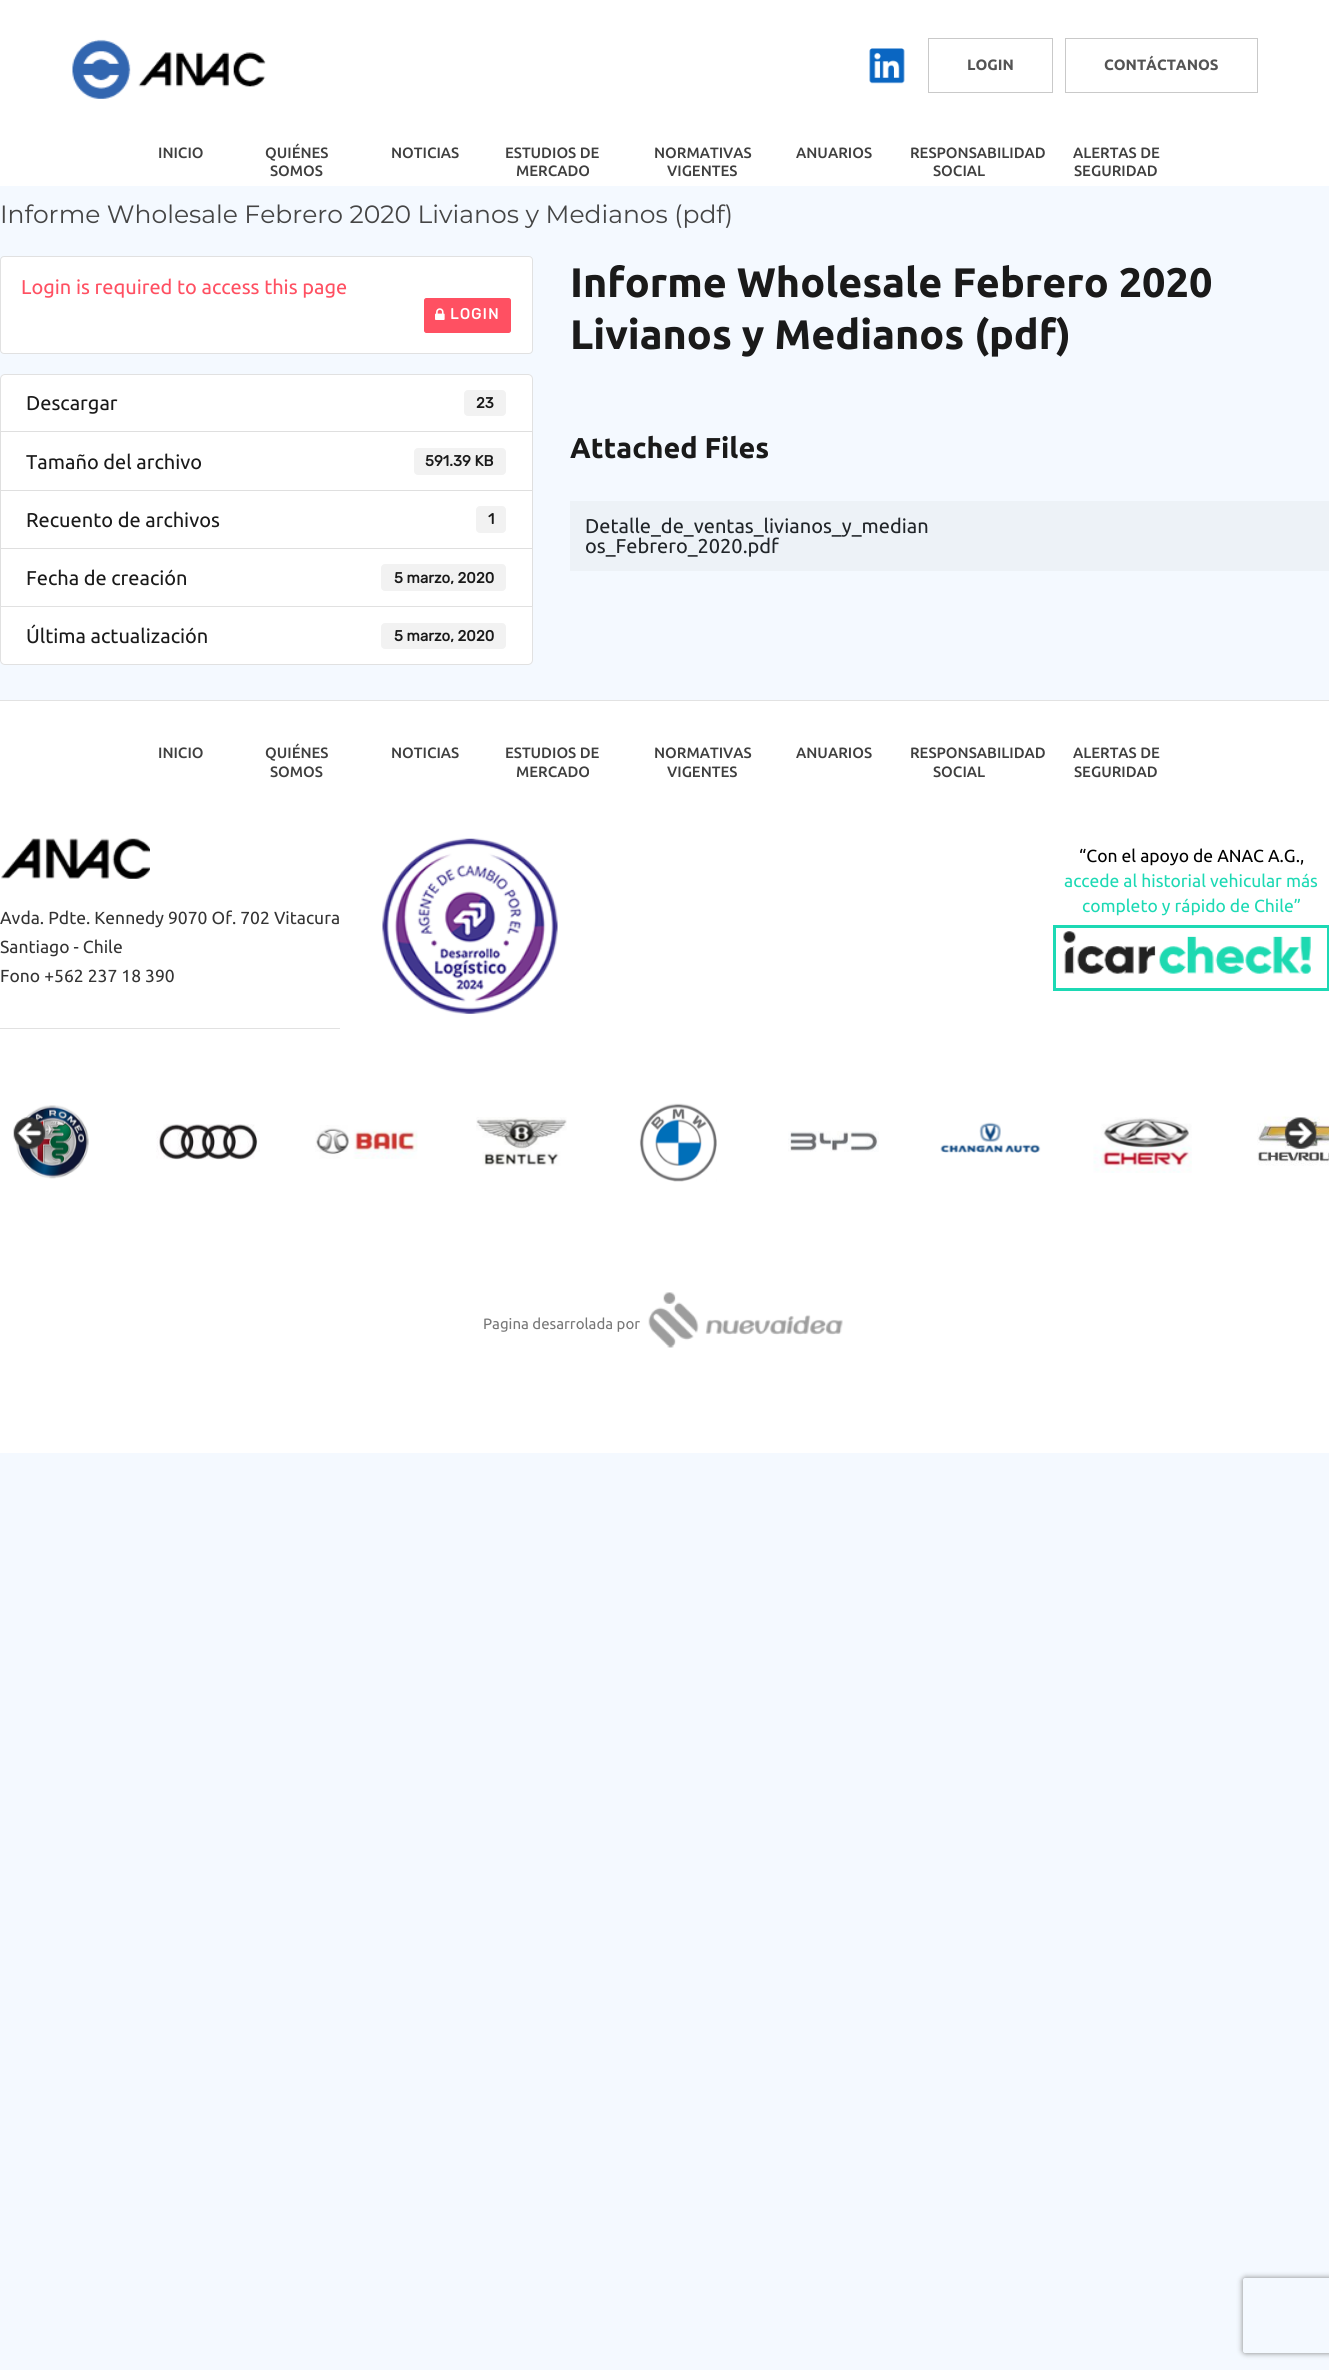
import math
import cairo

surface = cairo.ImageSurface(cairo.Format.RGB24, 1329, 2370)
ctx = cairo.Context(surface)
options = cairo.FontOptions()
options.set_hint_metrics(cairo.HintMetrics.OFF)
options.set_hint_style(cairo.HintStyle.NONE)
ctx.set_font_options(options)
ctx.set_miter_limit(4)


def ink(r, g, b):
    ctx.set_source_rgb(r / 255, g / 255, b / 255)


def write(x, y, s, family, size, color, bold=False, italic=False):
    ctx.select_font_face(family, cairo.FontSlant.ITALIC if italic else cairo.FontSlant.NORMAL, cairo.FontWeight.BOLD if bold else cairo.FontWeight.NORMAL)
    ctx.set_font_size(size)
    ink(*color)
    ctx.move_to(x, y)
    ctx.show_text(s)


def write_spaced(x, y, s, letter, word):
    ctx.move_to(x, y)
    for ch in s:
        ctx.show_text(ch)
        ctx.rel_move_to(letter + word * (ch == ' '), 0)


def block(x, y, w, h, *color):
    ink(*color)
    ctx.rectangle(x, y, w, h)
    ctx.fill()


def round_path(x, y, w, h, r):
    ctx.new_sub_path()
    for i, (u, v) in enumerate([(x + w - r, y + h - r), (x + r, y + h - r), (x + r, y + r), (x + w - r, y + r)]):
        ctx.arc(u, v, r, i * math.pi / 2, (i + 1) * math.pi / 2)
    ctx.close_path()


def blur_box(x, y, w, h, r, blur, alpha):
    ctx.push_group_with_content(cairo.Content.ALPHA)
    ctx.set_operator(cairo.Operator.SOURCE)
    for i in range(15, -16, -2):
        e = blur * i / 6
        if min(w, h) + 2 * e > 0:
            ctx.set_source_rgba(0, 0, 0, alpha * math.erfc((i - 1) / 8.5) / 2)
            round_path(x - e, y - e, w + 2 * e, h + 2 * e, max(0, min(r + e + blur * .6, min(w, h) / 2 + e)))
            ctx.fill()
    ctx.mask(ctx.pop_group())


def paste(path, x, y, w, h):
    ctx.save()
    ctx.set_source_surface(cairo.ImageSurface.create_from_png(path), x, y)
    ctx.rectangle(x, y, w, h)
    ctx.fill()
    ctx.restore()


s1 = dict(family="Ubuntu", size=15, color=(84, 84, 84), bold=True)
s2 = dict(family="Ubuntu Medium", size=15, color=(63, 63, 63))
s3 = dict(family="Montserrat", size=25, color=(69, 69, 69))
s4 = dict(family="Ubuntu", size=20, color=(255, 80, 98))
s5 = dict(family="Ubuntu", size=20, color=(26, 26, 26))
s6 = dict(family="Rubik", size=15, color=(26, 26, 26), bold=True)
s7 = dict(family="Ubuntu", size=41.25, color=(26, 26, 26), bold=True)
s8 = dict(family="Ubuntu", size=28.75, color=(26, 26, 26), bold=True)
s9 = dict(family="Ubuntu", size=20, color=(33, 37, 41))
s10 = dict(family="Ubuntu", size=17.5, color=(0, 0, 0))
s11 = dict(family="Ubuntu", size=17.5, color=(28, 217, 180))
s12 = dict(family="Ubuntu", size=17.5, color=(52, 52, 52))
s13 = dict(family="Ubuntu", size=15, color=(119, 119, 119))

ink(244, 249, 255)
ctx.paint()
block(0, 0, 1329, 186, 255, 255, 255)
paste("pic1.png", 72, 39, 194, 60)
paste("pic2.png", 869, 48, 36, 36)
ctx.rectangle(928.5, 38.5, 124, 54)
ink(201, 201, 201)
ctx.set_line_width(1)
ctx.stroke()
write(967, 70, "LOGIN", **s1)
ctx.rectangle(1065.5, 38.5, 192, 54)
ink(201, 201, 201)
ctx.stroke()
write(1104, 70, "CONTÁCTANOS", **s1)
write(158, 158, "INICIO", **s2)
write(265, 158, "QUIÉNES", **s2)
write(270, 176, "SOMOS", **s2)
write(391, 158, "NOTICIAS", **s2)
write(505, 158, "ESTUDIOS DE", **s2)
write(516, 176, "MERCADO", **s2)
write(654, 158, "NORMATIVAS", **s2)
write(667, 176, "VIGENTES", **s2)
write(796, 158, "ANUARIOS", **s2)
write(910, 158, "RESPONSABILIDAD", **s2)
write(933, 176, "SOCIAL", **s2)
write(1073, 158, "ALERTAS DE", **s2)
write(1074, 176, "SEGURIDAD", **s2)
write(0, 223, "Informe Wholesale Febrero 2020 Livianos y Medianos (pdf)", **s3)
ink(255, 255, 255)
round_path(0, 256, 533, 98, 4)
ctx.fill()
round_path(0.5, 256.5, 532, 97, 3.5)
ctx.set_source_rgba(0, 0, 0, 0.12)
ctx.stroke()
write(21, 294, "Login is required to access this page", **s4)
round_path(424.5, 298.5, 86, 34, 2)
ctx.fill_preserve()
ctx.stroke()
paste("pic3.png", 435, 308, 10, 12)
ctx.select_font_face("Rubik", cairo.FontSlant.NORMAL, cairo.FontWeight.BOLD)
ctx.set_font_size(15)
ink(255, 255, 255)
write_spaced(450, 319, "LOGIN", 1.25, 0)
ctx.new_path()
ctx.move_to(5, 374)
ctx.line_to(528, 374)
ctx.curve_to(531, 374, 533, 376, 533, 379)
ctx.line_to(533, 433)
ctx.line_to(0, 433)
ctx.line_to(0, 379)
ctx.curve_to(0, 376, 2, 374, 5, 374)
ctx.close_path()
ctx.fill()
ctx.new_path()
ctx.move_to(5, 374.5)
ctx.line_to(528, 374.5)
ctx.curve_to(530.5, 374.5, 532.5, 376.5, 532.5, 379)
ctx.line_to(532.5, 432.5)
ctx.line_to(0.5, 432.5)
ctx.line_to(0.5, 379)
ctx.curve_to(0.5, 376.5, 2.5, 374.5, 5, 374.5)
ctx.close_path()
ctx.set_source_rgba(0, 0, 0, 0.12)
ctx.stroke()
write(26, 410, "Descargar", **s5)
ink(242, 242, 242)
round_path(464, 390, 42, 26, 4)
ctx.fill()
write(476, 408, "23", **s6)
ink(255, 255, 255)
ctx.rectangle(0.5, 431.5, 532, 59)
ctx.fill_preserve()
ink(223, 223, 223)
ctx.stroke()
write(26, 469, "Tamaño del archivo", **s5)
ink(242, 242, 242)
round_path(414, 448, 92, 27, 4)
ctx.fill()
write(425, 466, "591.39 KB", **s6)
ink(255, 255, 255)
ctx.rectangle(0.5, 490.5, 532, 58)
ctx.fill_preserve()
ink(223, 223, 223)
ctx.stroke()
write(26, 527, "Recuento de archivos", **s5)
ink(242, 242, 242)
round_path(476, 506, 30, 27, 4)
ctx.fill()
write(488, 524, "1", **s6)
block(1, 549, 531, 57, 255, 255, 255)
ctx.rectangle(0.5, 548.5, 532, 59)
ink(223, 223, 223)
ctx.stroke()
write(26, 585, "Fecha de creación", **s5)
ink(242, 242, 242)
round_path(381, 564, 125, 27, 4)
ctx.fill()
write(394, 583, "5 marzo, 2020", **s6)
ink(255, 255, 255)
ctx.new_path()
ctx.move_to(0, 606)
ctx.line_to(533, 606)
ctx.line_to(533, 660)
ctx.curve_to(533, 663, 531, 665, 528, 665)
ctx.line_to(5, 665)
ctx.curve_to(2, 665, 0, 663, 0, 660)
ctx.close_path()
ctx.fill()
ctx.new_path()
ctx.move_to(0.5, 606.5)
ctx.line_to(532.5, 606.5)
ctx.line_to(532.5, 660)
ctx.curve_to(532.5, 662.5, 530.5, 664.5, 528, 664.5)
ctx.line_to(5, 664.5)
ctx.curve_to(2.5, 664.5, 0.5, 662.5, 0.5, 660)
ctx.close_path()
ctx.set_source_rgba(0, 0, 0, 0.12)
ctx.stroke()
write(26, 643, "Última actualización", **s5)
ink(242, 242, 242)
round_path(381, 623, 125, 26, 4)
ctx.fill()
write(394, 641, "5 marzo, 2020", **s6)
write(570, 297, "Informe Wholesale Febrero 2020", **s7)
write(570, 349, "Livianos y Medianos (pdf)", **s7)
write(570, 458, "Attached Files", **s8)
block(570, 501, 759, 70, 237, 242, 247)
write(585, 533, "Detalle_de_ventas_livianos_y_median", **s9)
write(585, 553, "os_Febrero_2020.pdf", **s9)
block(0, 701, 1329, 752, 255, 255, 255)
block(0, 700, 1329, 1, 226, 226, 226)
write(158, 758, "INICIO", **s2)
write(265, 758, "QUIÉNES", **s2)
write(270, 777, "SOMOS", **s2)
write(391, 758, "NOTICIAS", **s2)
write(505, 758, "ESTUDIOS DE", **s2)
write(516, 777, "MERCADO", **s2)
write(654, 758, "NORMATIVAS", **s2)
write(667, 777, "VIGENTES", **s2)
write(796, 758, "ANUARIOS", **s2)
write(910, 758, "RESPONSABILIDAD", **s2)
write(933, 777, "SOCIAL", **s2)
write(1073, 758, "ALERTAS DE", **s2)
write(1074, 777, "SEGURIDAD", **s2)
paste("pic4.png", 382, 838, 176, 176)
write(1079, 862, "“Con el apoyo de ANAC A.G.,", **s10)
write(1064, 887, "accede al historial vehicular más", **s11)
write(1082, 912, "completo y rápido de Chile”", **s11)
ctx.rectangle(1054.5, 926.5, 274, 63)
ctx.set_line_width(3)
ctx.stroke()
paste("pic5.png", 1063, 931, 248, 43)
paste("pic6.png", 1, 838, 149, 41)
block(0, 1028, 340, 1, 225, 225, 225)
write(0, 924, "Avda. Pdte. Kennedy 9070 Of. 702 Vitacura", **s12)
write(0, 953, "Santiago - Chile", **s12)
write(0, 982, "Fono +562 237 18 390", **s12)
paste("pic7.png", 16, 1105, 73, 74)
paste("pic8.png", 156, 1124, 104, 36)
paste("pic9.png", 315, 1125, 103, 34)
paste("pic10.png", 476, 1117, 91, 49)
paste("pic11.png", 639, 1103, 78, 79)
paste("pic12.png", 788, 1131, 91, 21)
paste("pic13.png", 940, 1122, 101, 31)
paste("pic14.png", 1093, 1117, 99, 56)
paste("pic15.png", 1257, 1116, 72, 50)
paste("pic16.png", 13, 1117, 33, 32)
paste("pic17.png", 1284, 1117, 33, 32)
write(483, 1329, "Pagina desarrolada por", **s13)
paste("pic18.png", 648, 1292, 195, 56)
ctx.save()
ctx.set_fill_rule(cairo.FillRule.EVEN_ODD)
ctx.new_path()
ctx.move_to(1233, 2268)
ctx.line_to(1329, 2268)
ctx.line_to(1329, 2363)
ctx.line_to(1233, 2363)
ctx.close_path()
ctx.move_to(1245.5, 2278)
ctx.line_to(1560.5, 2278)
ctx.curve_to(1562, 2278, 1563, 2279, 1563, 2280.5)
ctx.line_to(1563, 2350.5)
ctx.curve_to(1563, 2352, 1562, 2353, 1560.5, 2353)
ctx.line_to(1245.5, 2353)
ctx.curve_to(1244, 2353, 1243, 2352, 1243, 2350.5)
ctx.line_to(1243, 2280.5)
ctx.curve_to(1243, 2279, 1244, 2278, 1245.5, 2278)
ctx.close_path()
ctx.clip()
ink(128, 128, 128)
blur_box(1243, 2278, 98, 75, 2.5, 3, 1)
ctx.restore()
surface.write_to_png("screenshot.png")
